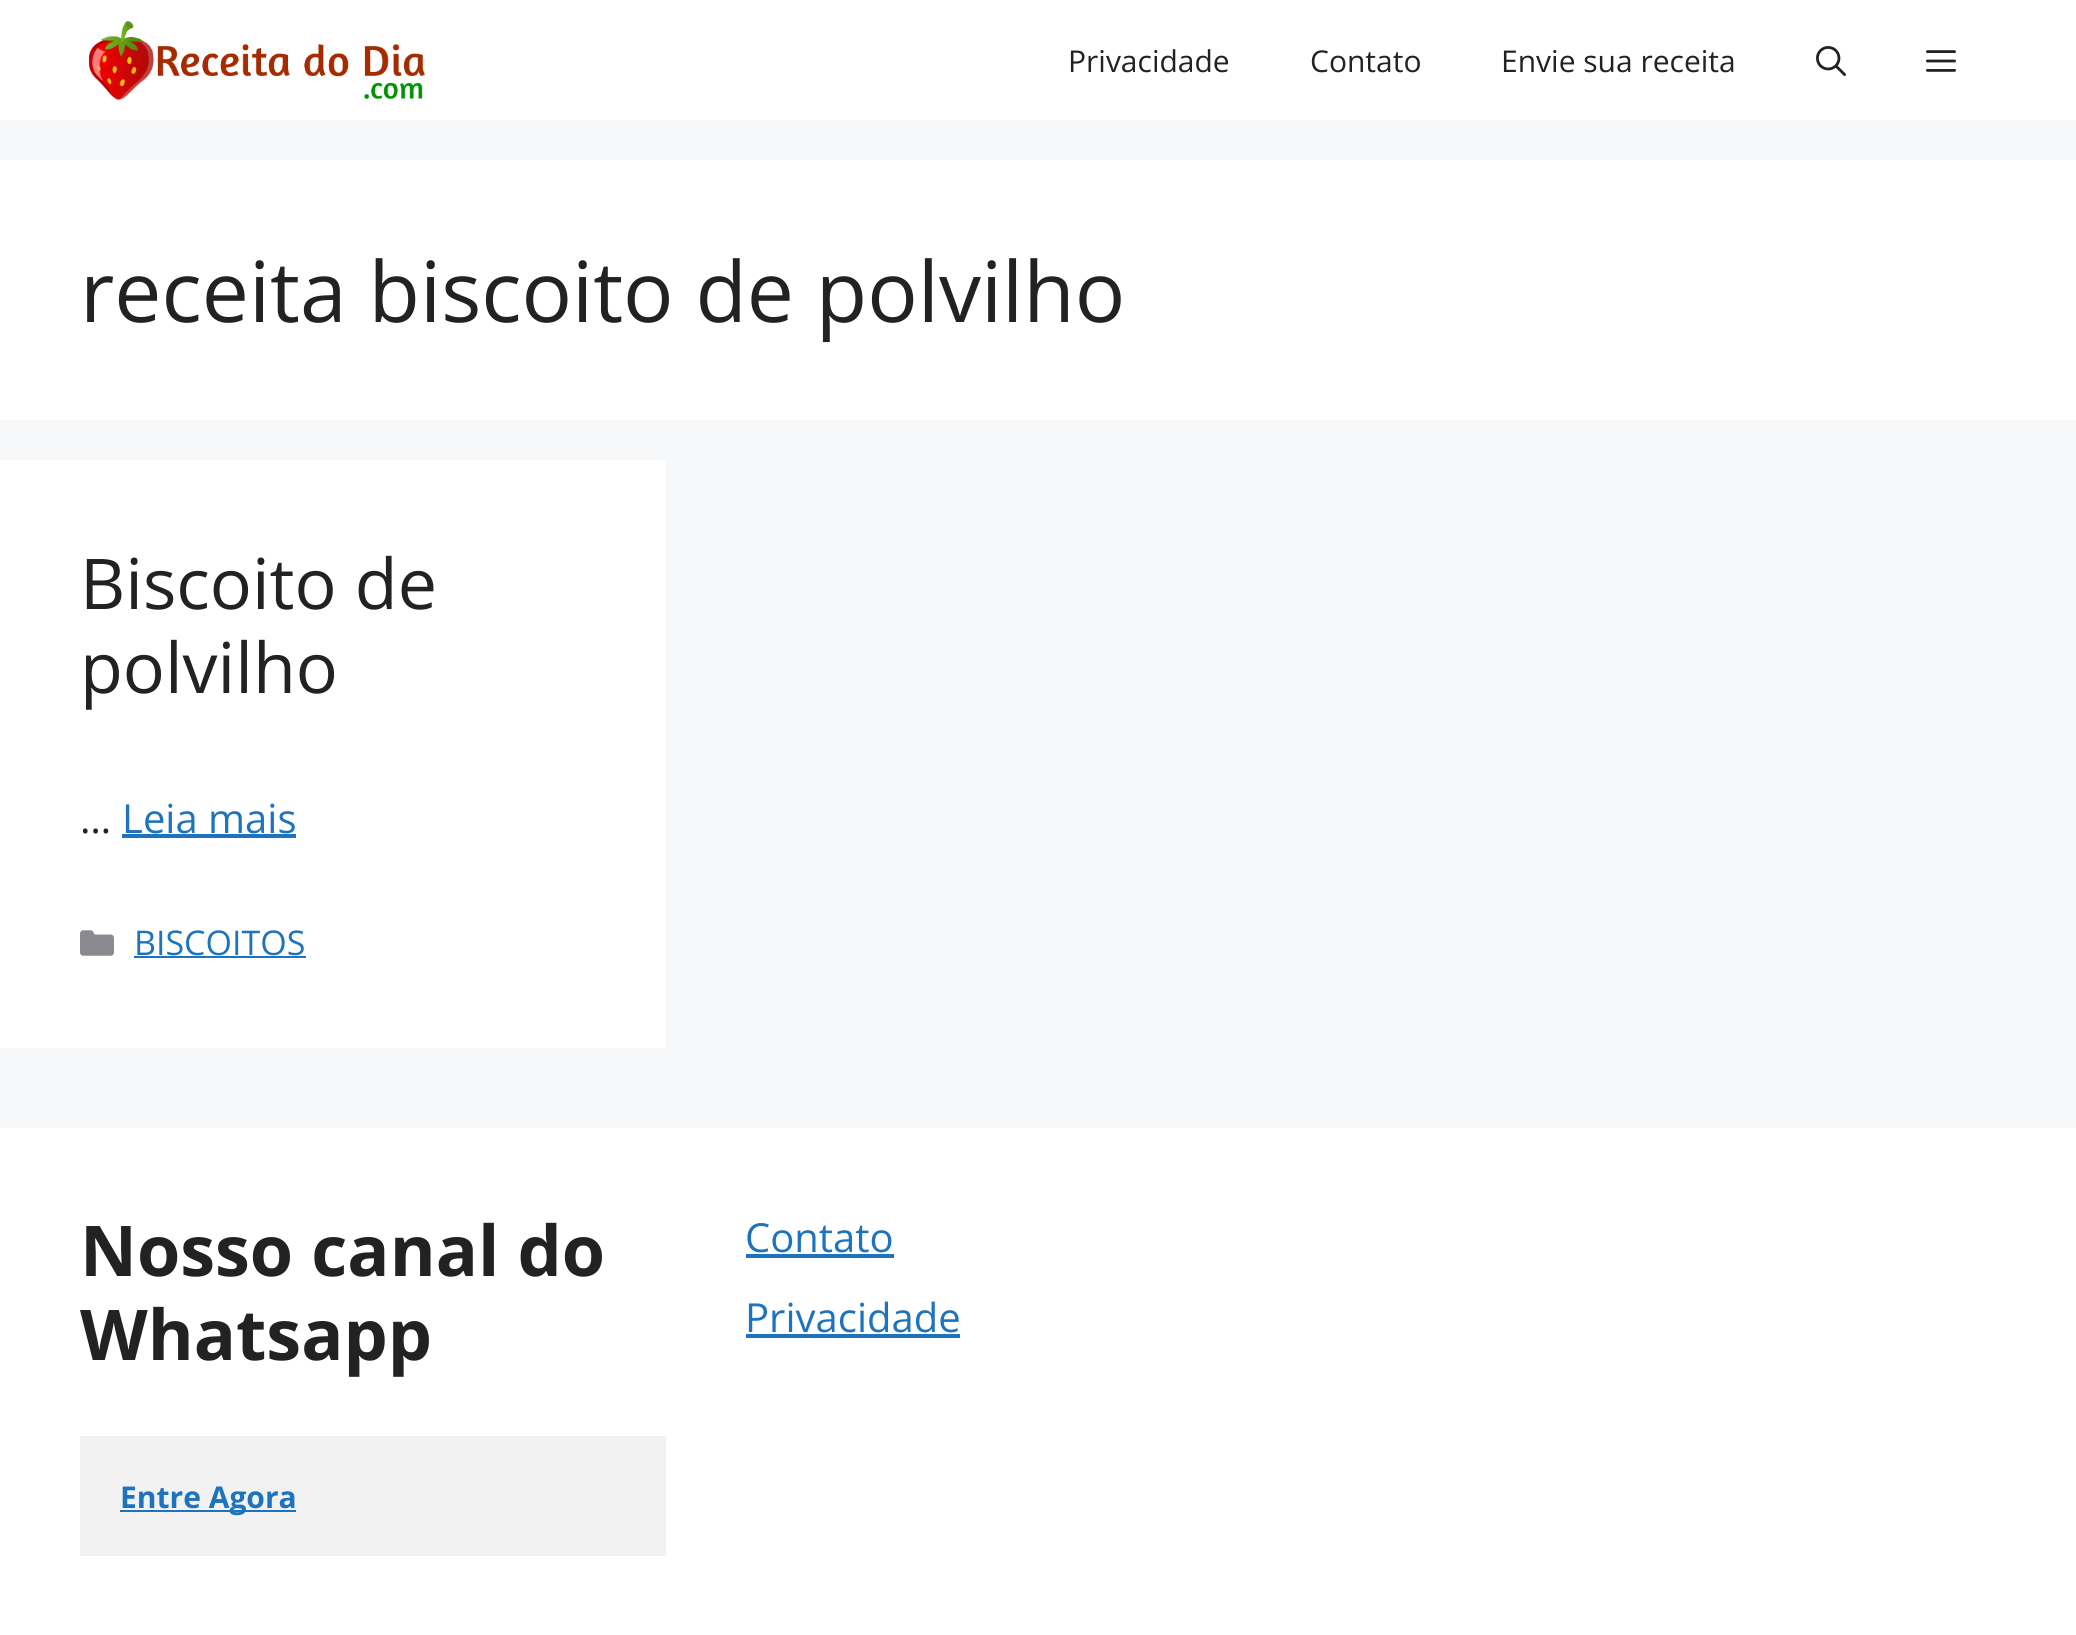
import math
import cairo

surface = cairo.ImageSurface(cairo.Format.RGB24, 2076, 1635)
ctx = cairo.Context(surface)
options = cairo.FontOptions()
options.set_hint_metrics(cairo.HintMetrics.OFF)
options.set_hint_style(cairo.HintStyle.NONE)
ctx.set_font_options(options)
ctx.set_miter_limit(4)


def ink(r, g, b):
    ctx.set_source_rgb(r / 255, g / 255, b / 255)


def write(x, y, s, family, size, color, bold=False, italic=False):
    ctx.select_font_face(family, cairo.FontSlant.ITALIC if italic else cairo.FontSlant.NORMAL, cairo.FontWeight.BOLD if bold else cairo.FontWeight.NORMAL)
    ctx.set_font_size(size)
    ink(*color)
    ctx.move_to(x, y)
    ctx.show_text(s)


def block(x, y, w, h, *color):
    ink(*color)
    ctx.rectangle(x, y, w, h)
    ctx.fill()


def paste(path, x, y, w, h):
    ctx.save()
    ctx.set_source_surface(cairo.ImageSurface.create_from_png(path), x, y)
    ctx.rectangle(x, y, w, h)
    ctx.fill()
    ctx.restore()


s1 = dict(family="Open Sans", size=30, color=(34, 34, 34))
s2 = dict(family="Open Sans", size=84, color=(34, 34, 34))
s3 = dict(family="Open Sans", size=70, color=(34, 34, 34))
s4 = dict(family="Open Sans", size=40, color=(34, 34, 34))
s5 = dict(family="Open Sans", size=40, color=(30, 115, 190))
s6 = dict(family="Open Sans", size=34, color=(30, 115, 190))
s7 = dict(family="Open Sans", size=70, color=(34, 34, 34), bold=True)
s8 = dict(family="Open Sans", size=30, color=(30, 115, 190), bold=True)

ink(247, 248, 249)
ctx.paint()
block(0, 0, 2076, 120, 255, 255, 255)
paste("pic1.png", 88, 20, 338, 80)
write(1068, 72, "Privacidade", **s1)
write(1310, 72, "Contato", **s1)
write(1501, 72, "Envie sua receita", **s1)
paste("pic2.png", 1816, 46, 30, 30)
paste("pic3.png", 1926, 50, 30, 22)
block(0, 160, 2076, 260, 255, 255, 255)
write(80, 322, "receita biscoito de polvilho", **s2)
block(0, 460, 666, 588, 255, 255, 255)
write(80, 609, "Biscoito de", **s3)
write(80, 693, "polvilho", **s3)
write(80, 833, "…", **s4)
write(122, 833, "Leia mais", **s5)
block(122, 834, 174, 4, 30, 115, 190)
paste("pic4.png", 80, 930, 34, 26)
write(134, 955, "BISCOITOS", **s6)
block(134, 956, 172, 2, 30, 115, 190)
block(0, 1128, 2076, 507, 255, 255, 255)
write(80, 1276, "Nosso canal do", **s7)
write(80, 1360, "Whatsapp", **s7)
block(80, 1436, 586, 120, 242, 242, 242)
block(120, 1510, 176, 2, 30, 115, 190)
write(120, 1508, "Entre Agora", **s8)
write(745, 1252, "Contato", **s5)
block(746, 1254, 148, 4, 30, 115, 190)
write(745, 1332, "Privacidade", **s5)
block(746, 1334, 214, 4, 30, 115, 190)
surface.write_to_png("screenshot.png")
